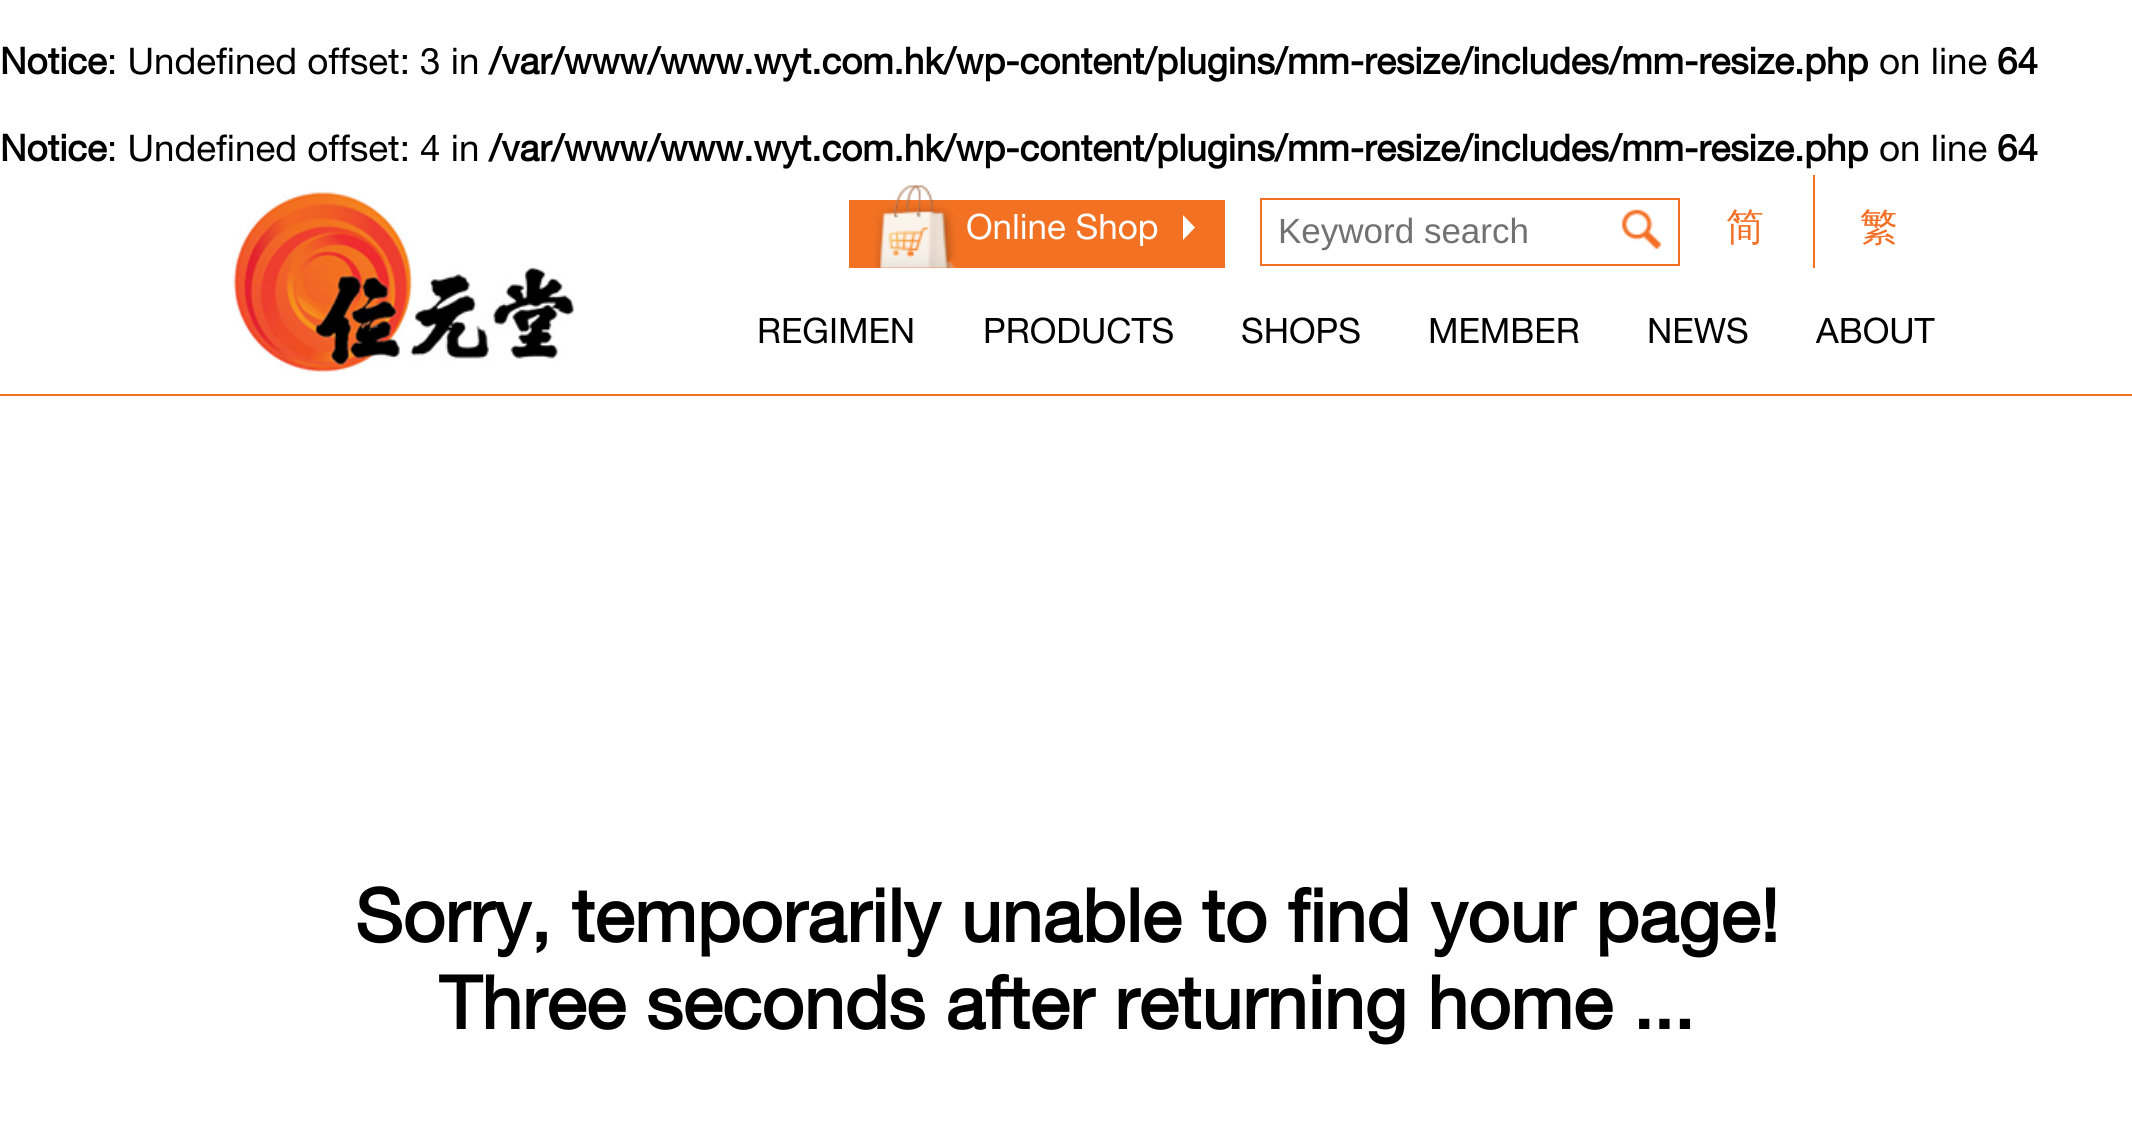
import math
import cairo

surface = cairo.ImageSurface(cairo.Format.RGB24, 2132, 1142)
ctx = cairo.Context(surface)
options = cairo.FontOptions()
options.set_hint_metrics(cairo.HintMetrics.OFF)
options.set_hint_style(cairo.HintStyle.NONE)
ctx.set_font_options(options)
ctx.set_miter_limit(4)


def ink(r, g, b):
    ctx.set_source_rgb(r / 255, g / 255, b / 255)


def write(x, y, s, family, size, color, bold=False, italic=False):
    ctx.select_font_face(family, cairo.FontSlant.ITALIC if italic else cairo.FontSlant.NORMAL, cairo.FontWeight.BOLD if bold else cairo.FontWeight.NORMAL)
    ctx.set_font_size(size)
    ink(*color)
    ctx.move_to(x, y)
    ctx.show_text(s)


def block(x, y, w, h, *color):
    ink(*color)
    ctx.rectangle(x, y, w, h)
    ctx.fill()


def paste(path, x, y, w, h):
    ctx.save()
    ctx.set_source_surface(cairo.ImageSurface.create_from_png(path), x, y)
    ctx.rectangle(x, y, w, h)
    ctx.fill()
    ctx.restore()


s1 = dict(family="Helvetica Neue", size=36.75, color=(0, 0, 0), bold=True)
s2 = dict(family="Helvetica Neue", size=36.75, color=(0, 0, 0))
s3 = dict(family="Helvetica Neue", size=35, color=(255, 255, 255))
s4 = dict(family="Liberation Sans", size=35, color=(113, 113, 113))
s5 = dict(family="WenQuanYi Zen Hei Medium", size=38, color=(243, 111, 37))
s6 = dict(family="Helvetica Neue", size=35, color=(0, 0, 0))
s7 = dict(family="Helvetica Neue", size=73.5, color=(0, 0, 0), bold=True)

ink(255, 255, 255)
ctx.paint()
write(0, 74, "Notice", **s1)
write(107, 74, ": Undefined offset: 3 in", **s2)
write(489, 74, "/var/www/www.wyt.com.hk/wp-content/plugins/mm-resize/includes/mm-resize.php", **s1)
write(1879, 74, "on line", **s2)
write(1997, 74, "64", **s1)
write(0, 161, "Notice", **s1)
write(107, 161, ": Undefined offset: 4 in", **s2)
write(489, 161, "/var/www/www.wyt.com.hk/wp-content/plugins/mm-resize/includes/mm-resize.php", **s1)
write(1879, 161, "on line", **s2)
write(1997, 161, "64", **s1)
block(0, 394, 2132, 2, 243, 114, 33)
paste("pic1.png", 232, 188, 343, 186)
block(849, 200, 376, 68, 242, 113, 34)
paste("pic2.png", 874, 185, 82, 84)
write(966, 239, "Online Shop", **s3)
ctx.new_path()
ctx.move_to(1183, 240)
ctx.line_to(1183, 215)
ctx.line_to(1195, 227.5)
ctx.close_path()
ctx.fill()
ctx.rectangle(1261, 199, 418, 66)
ink(243, 114, 33)
ctx.stroke()
write(1278, 243, "Keyword search", **s4)
paste("pic3.png", 1621, 209, 41, 41)
write(1726, 240, "简", **s5)
block(1813, 175, 2, 93, 243, 114, 33)
write(1860, 240, "繁", **s5)
write(757, 343, "REGIMEN", **s6)
write(983, 343, "PRODUCTS", **s6)
write(1241, 343, "SHOPS", **s6)
write(1428, 343, "MEMBER", **s6)
write(1647, 343, "NEWS", **s6)
write(1816, 343, "ABOUT", **s6)
write(355, 942, "Sorry, temporarily unable to find your page!", **s7)
write(439, 1029, "Three seconds after returning home ...", **s7)
surface.write_to_png("screenshot.png")
